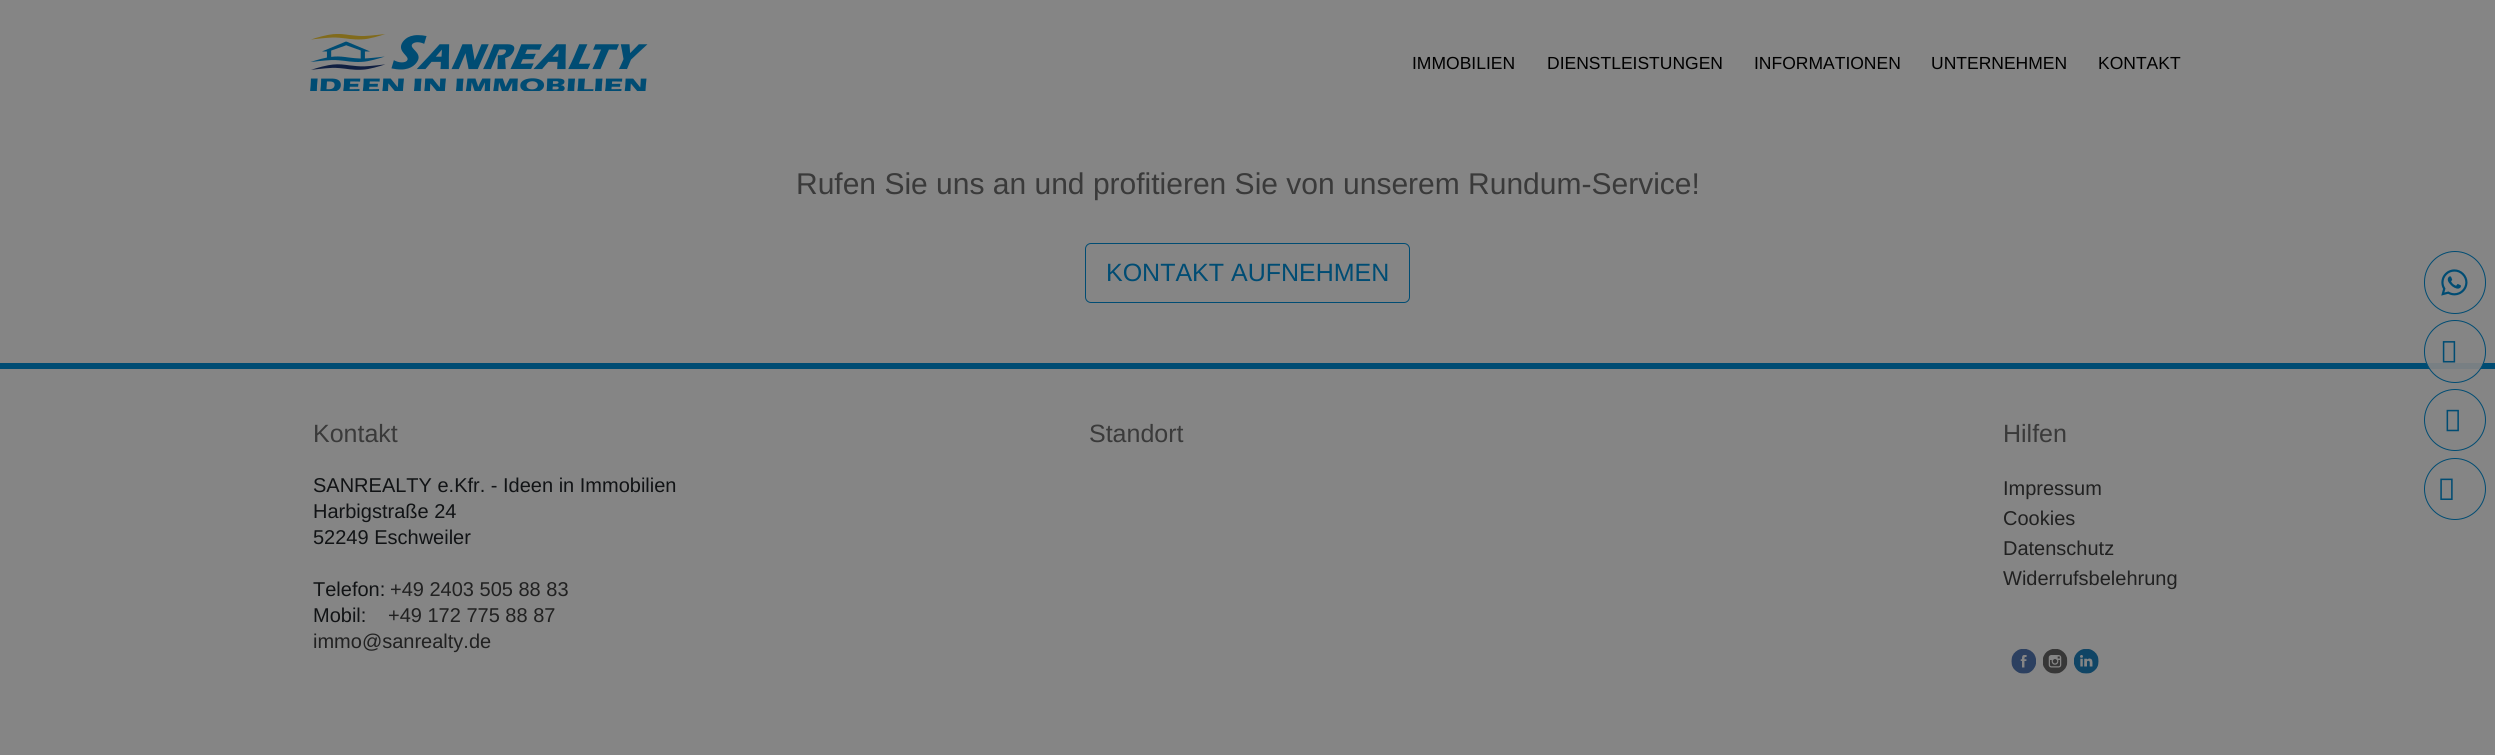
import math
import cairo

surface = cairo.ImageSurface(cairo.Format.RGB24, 2495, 755)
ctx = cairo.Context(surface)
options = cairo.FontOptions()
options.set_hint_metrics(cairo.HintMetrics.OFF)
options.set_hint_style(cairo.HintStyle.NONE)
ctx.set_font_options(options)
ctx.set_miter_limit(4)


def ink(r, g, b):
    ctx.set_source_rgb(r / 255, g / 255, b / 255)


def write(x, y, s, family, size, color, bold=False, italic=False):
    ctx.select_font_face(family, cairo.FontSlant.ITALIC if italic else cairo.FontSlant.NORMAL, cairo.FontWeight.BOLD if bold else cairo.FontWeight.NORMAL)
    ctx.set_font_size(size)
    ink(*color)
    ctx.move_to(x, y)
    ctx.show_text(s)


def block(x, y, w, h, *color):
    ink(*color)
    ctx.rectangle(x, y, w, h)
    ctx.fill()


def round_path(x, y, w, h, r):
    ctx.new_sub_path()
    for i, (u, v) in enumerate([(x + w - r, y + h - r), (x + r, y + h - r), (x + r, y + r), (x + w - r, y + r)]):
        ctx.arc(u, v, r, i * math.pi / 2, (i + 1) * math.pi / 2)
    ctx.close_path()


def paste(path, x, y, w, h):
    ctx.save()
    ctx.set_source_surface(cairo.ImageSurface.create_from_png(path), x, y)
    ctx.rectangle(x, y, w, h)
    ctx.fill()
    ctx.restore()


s1 = dict(family="Liberation Sans", size=17.5, color=(0, 0, 0))
s2 = dict(family="Liberation Sans", size=30, color=(58, 58, 58))
s3 = dict(family="Liberation Sans", size=25, color=(0, 76, 115))
s4 = dict(family="Liberation Sans", size=25, color=(58, 58, 58))
s5 = dict(family="Liberation Sans", size=20, color=(17, 19, 21))
s6 = dict(family="Liberation Sans", size=20, color=(33, 33, 33))

ink(133, 133, 133)
ctx.paint()
paste("pic1.png", 310, 34, 338, 57)
write(1412, 69, "IMMOBILIEN", **s1)
write(1547, 69, "DIENSTLEISTUNGEN", **s1)
write(1754, 69, "INFORMATIONEN", **s1)
write(1931, 69, "UNTERNEHMEN", **s1)
write(2098, 69, "KONTAKT", **s1)
write(796, 194, "Rufen Sie uns an und profitieren Sie von unserem Rundum-Service!", **s2)
round_path(1085.5, 243.5, 324, 59, 5.5)
ink(0, 76, 115)
ctx.set_line_width(1)
ctx.stroke()
write(1106, 281, "KONTAKT AUFNEHMEN", **s3)
block(0, 363, 2495, 6, 0, 76, 115)
write(313, 442, "Kontakt", **s4)
write(313, 492, "SANREALTY e.Kfr. - Ideen in Immobilien", **s5)
write(313, 518, "Harbigstraße 24", **s5)
write(313, 544, "52249 Eschweiler", **s5)
write(313, 596, "Telefon:", **s5)
write(390, 596, "+49 2403 505 88 83", **s6)
write(313, 622, "Mobil:", **s5)
write(388, 622, "+49 172 775 88 87", **s6)
write(313, 648, "immo@sanrealty.de", **s6)
write(1089, 442, "Standort", **s4)
write(2003, 442, "Hilfen", **s4)
write(2003, 495, "Impressum", **s6)
write(2003, 525, "Cookies", **s6)
write(2003, 555, "Datenschutz", **s6)
write(2003, 585, "Widerrufsbelehrung", **s6)
paste("pic2.png", 2011, 649, 25, 25)
paste("pic3.png", 2043, 649, 25, 25)
paste("pic4.png", 2074, 649, 25, 25)
round_path(2424.5, 251.5, 61, 62, 30.5)
ink(0, 76, 115)
ctx.stroke()
paste("pic5.png", 2441, 269, 27, 27)
ctx.set_source_rgba(0.522, 0.522, 0.522, 0.9)
round_path(2424.5, 320.5, 61, 62, 30.5)
ctx.fill_preserve()
ink(0, 76, 115)
ctx.stroke()
paste("pic6.png", 2442, 341, 14, 22)
ctx.arc(2455, 420, 30.5, 0, 2 * math.pi)
ctx.stroke()
paste("pic7.png", 2446, 409, 13, 23)
ctx.arc(2455, 489, 30.5, 0, 2 * math.pi)
ctx.stroke()
paste("pic8.png", 2440, 478, 13, 22)
surface.write_to_png("screenshot.png")
